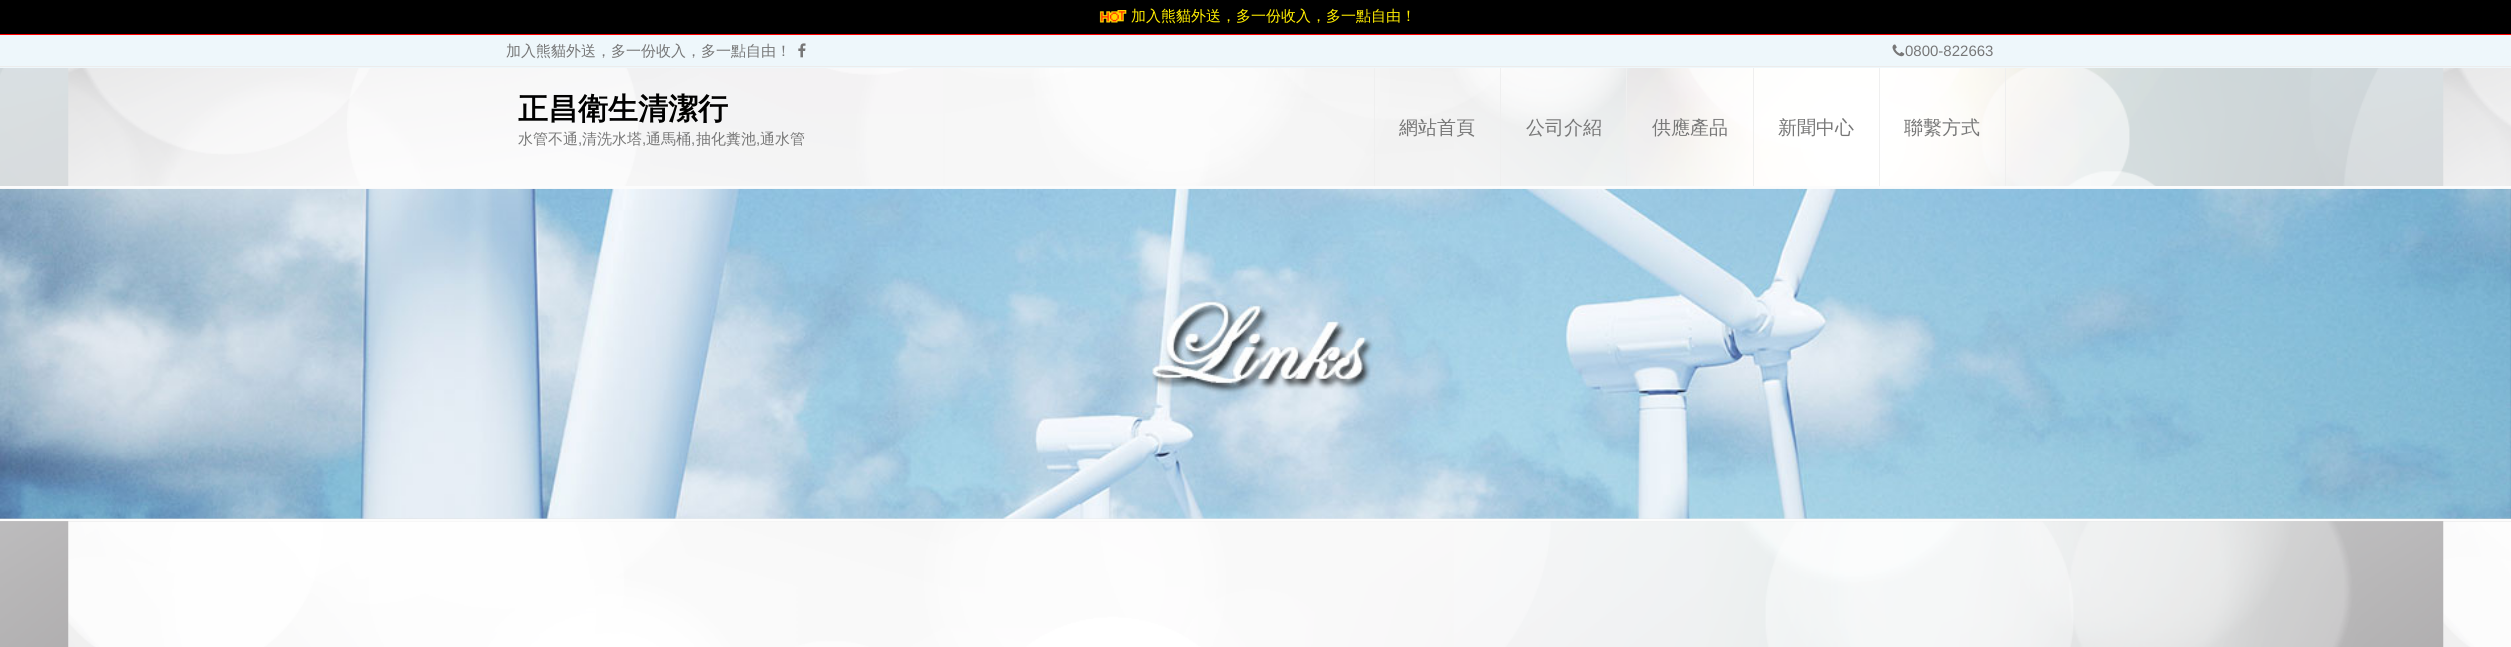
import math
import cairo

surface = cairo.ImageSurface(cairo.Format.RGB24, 2511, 647)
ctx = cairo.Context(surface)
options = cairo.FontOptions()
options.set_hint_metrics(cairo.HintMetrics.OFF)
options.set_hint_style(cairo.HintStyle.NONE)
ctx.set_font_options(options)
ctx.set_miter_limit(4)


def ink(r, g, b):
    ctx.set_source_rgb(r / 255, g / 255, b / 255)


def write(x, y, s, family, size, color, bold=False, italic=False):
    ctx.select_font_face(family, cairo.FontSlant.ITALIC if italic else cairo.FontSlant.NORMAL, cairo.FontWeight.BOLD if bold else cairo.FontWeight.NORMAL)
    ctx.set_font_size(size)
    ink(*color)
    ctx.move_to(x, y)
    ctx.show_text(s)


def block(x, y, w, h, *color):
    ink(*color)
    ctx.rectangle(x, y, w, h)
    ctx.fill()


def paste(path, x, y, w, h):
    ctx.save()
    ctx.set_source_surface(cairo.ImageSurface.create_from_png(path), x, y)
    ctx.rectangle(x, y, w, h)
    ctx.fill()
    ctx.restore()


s1 = dict(family="WenQuanYi Zen Hei Medium", size=15, color=(255, 237, 0))
s2 = dict(family="WenQuanYi Zen Hei Medium", size=15, color=(119, 119, 119))
s3 = dict(family="Liberation Sans", size=15, color=(119, 119, 119))
s4 = dict(family="WenQuanYi Zen Hei", size=30, color=(0, 0, 0), bold=True)
s5 = dict(family="WenQuanYi Zen Hei Medium", size=19, color=(119, 119, 119))

ink(255, 255, 255)
ctx.paint()
paste("pic1.png", 0, 68, 2511, 579)
block(0, 0, 2511, 34, 0, 0, 0)
block(0, 34, 2511, 1, 255, 0, 0)
paste("pic2.png", 1099, 10, 28, 13)
write(1131, 21, "加入熊貓外送，多一份收入，多一點自由！", **s1)
block(0, 35, 2511, 33, 238, 247, 251)
block(0, 66, 2511, 1, 236, 236, 236)
write(506, 56, "加入熊貓外送，多一份收入，多一點自由！", **s2)
paste("pic3.png", 798, 43, 8, 15)
paste("pic4.png", 1892, 44, 13, 13)
write(1905, 56, "0800-822663", **s3)
write(518, 119, "正昌衛生清潔行", **s4)
write(518, 144, "水管不通", **s2)
write(578, 144, ",", **s3)
write(582, 144, "清洗水塔", **s2)
write(642, 144, ",", **s3)
write(646, 144, "通馬桶", **s2)
write(691, 144, ",", **s3)
write(696, 144, "抽化糞池", **s2)
write(756, 144, ",", **s3)
write(760, 144, "通水管", **s2)
block(1374, 68, 1, 118, 239, 239, 239)
block(1500, 68, 1, 118, 239, 239, 239)
write(1399, 134, "網站首頁", **s5)
block(1626, 68, 1, 118, 239, 239, 239)
write(1526, 134, "公司介紹", **s5)
block(1753, 68, 1, 118, 239, 239, 239)
write(1652, 134, "供應產品", **s5)
block(1879, 68, 1, 118, 239, 239, 239)
write(1778, 134, "新聞中心", **s5)
block(2005, 68, 1, 118, 239, 239, 239)
write(1904, 134, "聯繫方式", **s5)
paste("pic5.png", 0, 518, 2511, 4)
block(0, 186, 2511, 3, 252, 252, 252)
block(0, 519, 2511, 2, 252, 252, 252)
paste("pic6.png", 0, 188, 2511, 331)
surface.write_to_png("screenshot.png")
